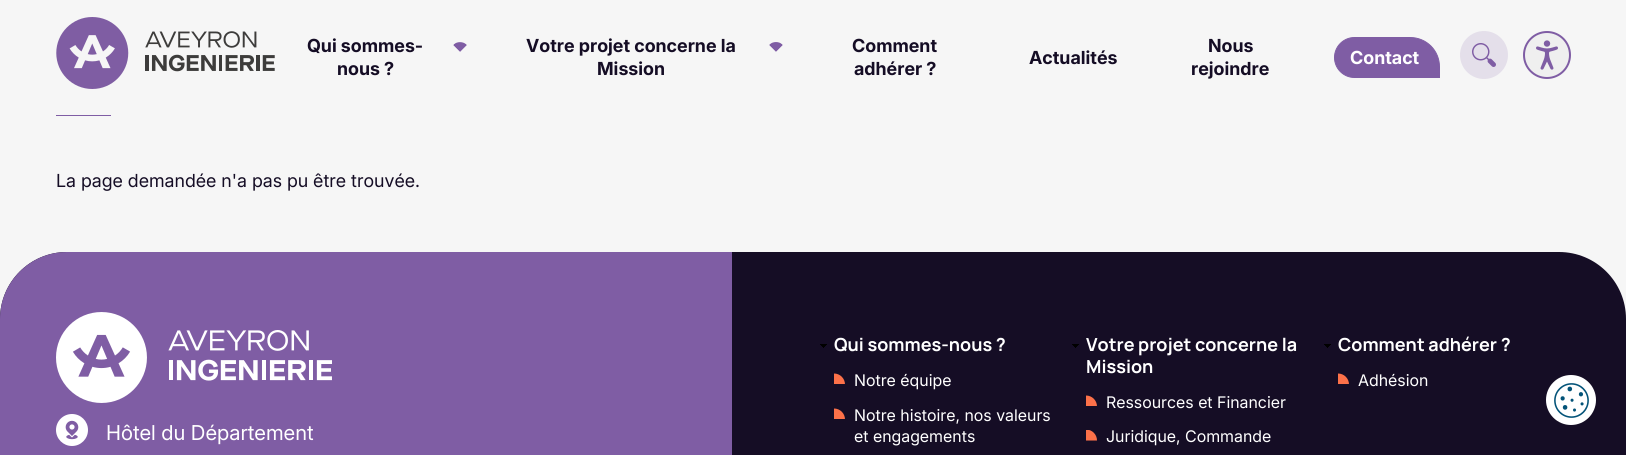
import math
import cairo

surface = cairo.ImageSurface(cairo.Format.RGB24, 1626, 455)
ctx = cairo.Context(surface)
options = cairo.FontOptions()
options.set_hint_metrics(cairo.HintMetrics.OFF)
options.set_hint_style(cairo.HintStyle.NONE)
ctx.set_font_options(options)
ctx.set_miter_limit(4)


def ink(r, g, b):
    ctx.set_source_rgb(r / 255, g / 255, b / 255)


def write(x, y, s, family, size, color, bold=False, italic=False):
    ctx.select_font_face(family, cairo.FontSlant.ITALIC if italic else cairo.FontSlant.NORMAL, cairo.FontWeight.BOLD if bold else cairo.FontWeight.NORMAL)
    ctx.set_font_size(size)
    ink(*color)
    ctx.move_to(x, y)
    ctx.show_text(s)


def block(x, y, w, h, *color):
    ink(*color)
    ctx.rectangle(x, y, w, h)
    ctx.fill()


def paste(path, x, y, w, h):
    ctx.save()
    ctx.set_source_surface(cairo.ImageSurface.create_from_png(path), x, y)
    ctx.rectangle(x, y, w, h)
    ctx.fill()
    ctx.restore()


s1 = dict(family="Inter", size=18, color=(21, 13, 37), bold=True)
s2 = dict(family="Inter", size=18, color=(255, 255, 255), bold=True)
s3 = dict(family="Inter", size=18, color=(21, 13, 37))
s4 = dict(family="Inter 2", size=20.5, color=(255, 255, 255))
s5 = dict(family="Manrope", size=18, color=(255, 255, 255), bold=True)
s6 = dict(family="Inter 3", size=16, color=(255, 255, 255))

ink(246, 246, 246)
ctx.paint()
paste("pic1.png", 56, 17, 219, 72)
write(307, 52, "Qui sommes-", **s1)
write(337, 75, "nous ?", **s1)
paste("pic2.png", 453, 42, 14, 10)
write(526, 52, "Votre projet concerne la", **s1)
write(597, 75, "Mission", **s1)
paste("pic3.png", 769, 42, 14, 10)
write(852, 52, "Comment", **s1)
write(854, 75, "adhérer ?", **s1)
write(1029, 64, "Actualités", **s1)
write(1208, 52, "Nous", **s1)
write(1191, 75, "rejoindre", **s1)
ink(127, 93, 164)
ctx.new_path()
ctx.move_to(1354.5, 37.5)
ctx.line_to(1410, 37.5)
ctx.curve_to(1426.5, 37.5, 1439.5, 50.5, 1439.5, 67)
ctx.line_to(1439.5, 77.5)
ctx.line_to(1354.5, 77.5)
ctx.curve_to(1343.5, 77.5, 1334.5, 68.5, 1334.5, 57.5)
ctx.curve_to(1334.5, 46.5, 1343.5, 37.5, 1354.5, 37.5)
ctx.close_path()
ctx.fill_preserve()
ctx.set_line_width(1)
ctx.stroke()
write(1350, 64, "Contact", **s2)
ink(228, 223, 234)
ctx.new_path()
ctx.arc(1484, 55, 24, 0, 2 * math.pi)
ctx.fill()
paste("pic4.png", 1472, 43, 24, 24)
ink(239, 239, 239)
ctx.arc(1547, 55, 23, 0, 2 * math.pi)
ctx.fill_preserve()
ink(127, 93, 164)
ctx.set_line_width(2)
ctx.stroke()
paste("pic5.png", 1536, 40, 22, 30)
block(56, 115, 55, 1, 127, 93, 164)
write(56, 187, "La page demandée n'a pas pu être trouvée.", **s3)
ctx.new_path()
ctx.move_to(67, 252)
ctx.line_to(1559, 252)
ctx.curve_to(1596, 252, 1626, 282, 1626, 319)
ctx.line_to(1626, 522)
ctx.line_to(0, 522)
ctx.line_to(0, 319)
ctx.curve_to(0, 282, 30, 252, 67, 252)
ctx.close_path()
ctx.fill()
ink(127, 93, 164)
ctx.new_path()
ctx.move_to(67, 252)
ctx.line_to(732, 252)
ctx.line_to(732, 455)
ctx.curve_to(732, 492, 702, 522, 665, 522)
ctx.line_to(0, 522)
ctx.line_to(0, 319)
ctx.curve_to(0, 282, 30, 252, 67, 252)
ctx.close_path()
ctx.fill()
paste("pic6.png", 56, 312, 276, 91)
paste("pic7.png", 56, 414, 32, 32)
write(106, 440, "Hôtel du Département", **s4)
paste("pic8.png", 820, 344, 7, 4)
write(834, 351, "Qui sommes-nous ?", **s5)
paste("pic9.png", 834, 373, 11, 11)
write(854, 386, "Notre équipe", **s6)
paste("pic9.png", 834, 408, 11, 11)
write(854, 421, "Notre histoire, nos valeurs", **s6)
write(854, 442, "et engagements", **s6)
paste("pic8.png", 1072, 344, 7, 4)
write(1086, 351, "Votre projet concerne la", **s5)
write(1086, 373, "Mission", **s5)
paste("pic9.png", 1086, 395, 11, 11)
write(1106, 408, "Ressources et Financier", **s6)
paste("pic10.png", 1086, 430, 11, 11)
write(1106, 442, "Juridique, Commande", **s6)
paste("pic8.png", 1324, 344, 7, 4)
write(1338, 351, "Comment adhérer ?", **s5)
paste("pic9.png", 1338, 373, 11, 11)
write(1358, 386, "Adhésion", **s6)
ctx.new_path()
ctx.arc(1571, 400, 25, 0, 2 * math.pi)
ctx.fill()
paste("pic11.png", 1554, 383, 35, 35)
surface.write_to_png("screenshot.png")
